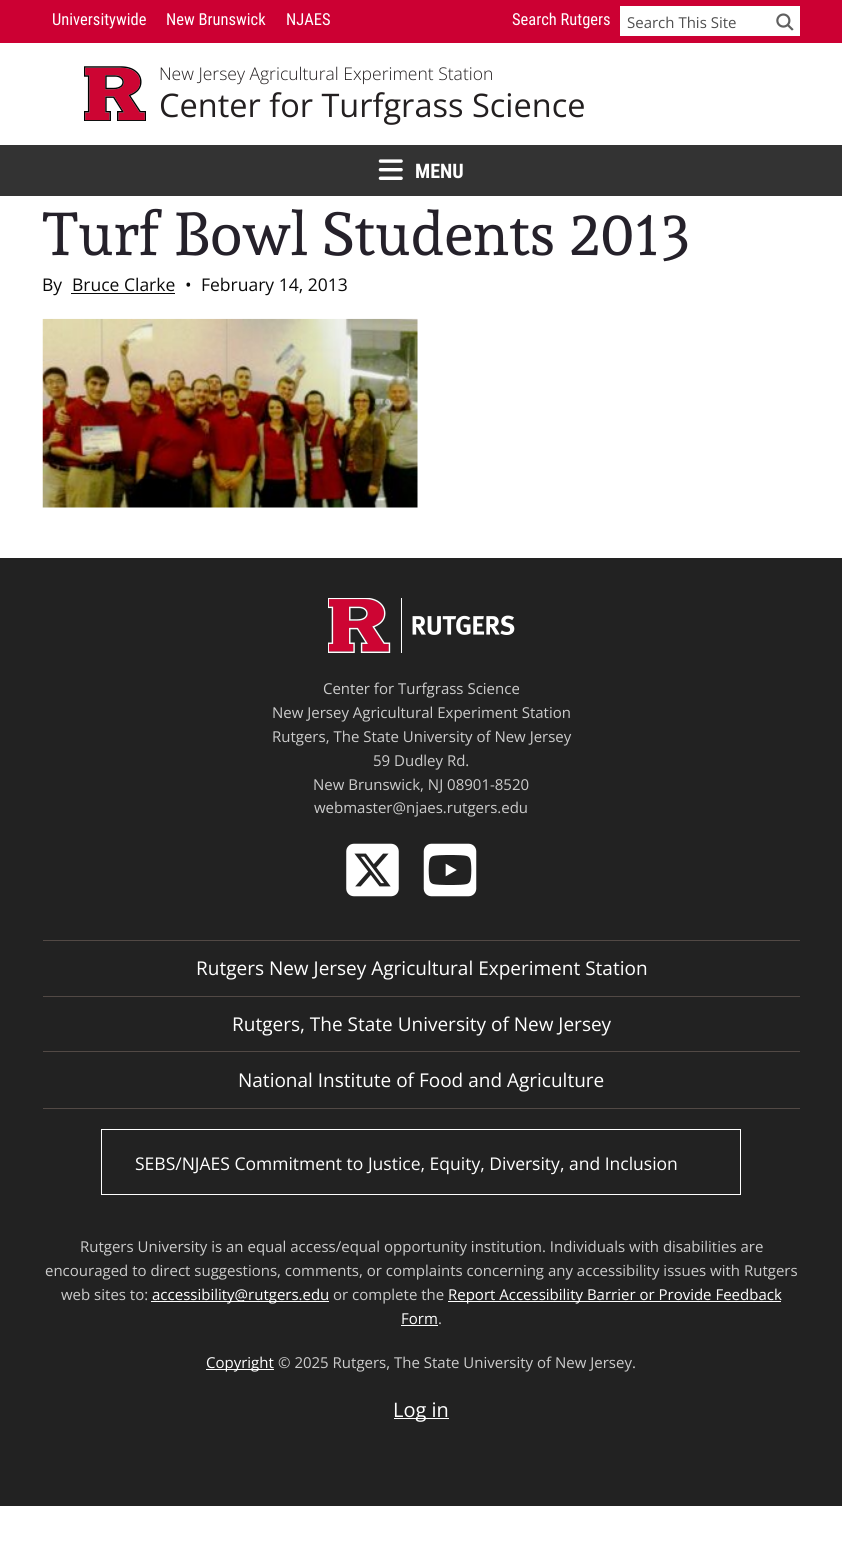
import math
import cairo

surface = cairo.ImageSurface(cairo.Format.RGB24, 842, 1551)
ctx = cairo.Context(surface)
options = cairo.FontOptions()
options.set_hint_metrics(cairo.HintMetrics.OFF)
options.set_hint_style(cairo.HintStyle.NONE)
ctx.set_font_options(options)
ctx.set_miter_limit(4)


def ink(r, g, b):
    ctx.set_source_rgb(r / 255, g / 255, b / 255)


def write(x, y, s, family, size, color, bold=False, italic=False):
    ctx.select_font_face(family, cairo.FontSlant.ITALIC if italic else cairo.FontSlant.NORMAL, cairo.FontWeight.BOLD if bold else cairo.FontWeight.NORMAL)
    ctx.set_font_size(size)
    ink(*color)
    ctx.move_to(x, y)
    ctx.show_text(s)


def block(x, y, w, h, *color):
    ink(*color)
    ctx.rectangle(x, y, w, h)
    ctx.fill()


def paste(path, x, y, w, h):
    ctx.save()
    ctx.set_source_surface(cairo.ImageSurface.create_from_png(path), x, y)
    ctx.rectangle(x, y, w, h)
    ctx.fill()
    ctx.restore()


s1 = dict(family="Roboto Condensed", size=16.5, color=(255, 255, 255))
s2 = dict(family="Open Sans", size=15, color=(79, 79, 79))
s3 = dict(family="Open Sans Light", size=17.5, color=(35, 31, 32))
s4 = dict(family="Open Sans", size=32.5, color=(35, 31, 32))
s5 = dict(family="Roboto Condensed", size=20, color=(255, 255, 255), bold=True)
s6 = dict(family="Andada", size=60, color=(37, 33, 42))
s7 = dict(family="Open Sans", size=17.5, color=(10, 10, 10))
s8 = dict(family="Open Sans", size=15, color=(204, 204, 204))
s9 = dict(family="Open Sans", size=19, color=(255, 255, 255))
s10 = dict(family="Open Sans", size=17.5, color=(255, 255, 255))
s11 = dict(family="Open Sans", size=15, color=(255, 255, 255))
s12 = dict(family="Open Sans", size=20, color=(255, 255, 255))

ink(255, 255, 255)
ctx.paint()
block(0, 0, 842, 43, 204, 0, 51)
write(52, 25, "Universitywide", **s1)
write(166, 25, "New Brunswick", **s1)
write(286, 25, "NJAES", **s1)
write(512, 25, "Search Rutgers", **s1)
block(620, 6, 180, 30, 255, 255, 255)
write(627, 28, "Search This Site", **s2)
paste("pic1.png", 776, 13, 18, 18)
paste("pic2.png", 84, 66, 62, 55)
write(159, 80, "New Jersey Agricultural Experiment Station", **s3)
write(159, 117, "Center for Turfgrass Science", **s4)
block(0, 145, 842, 51, 51, 51, 51)
paste("pic3.png", 378, 159, 25, 21)
write(415, 178, "MENU", **s5)
write(42, 255, "Turf Bowl Students 2013", **s6)
write(42, 291, "By", **s7)
write(72, 291, "Bruce Clarke", **s7)
block(71, 293, 104, 1, 10, 10, 10)
write(185, 291, "•", **s7)
write(201, 291, "February 14, 2013", **s7)
paste("pic4.png", 42, 318, 376, 190)
block(0, 558, 842, 948, 34, 34, 34)
paste("pic5.png", 328, 598, 187, 55)
write(323, 694, "Center for Turfgrass Science", **s8)
write(272, 718, "New Jersey Agricultural Experiment Station", **s8)
write(272, 742, "Rutgers, The State University of New Jersey", **s8)
write(373, 766, "59 Dudley Rd.", **s8)
write(313, 790, "New Brunswick, NJ 08901-8520", **s8)
write(314, 813, "webmaster@njaes.rutgers.edu", **s8)
paste("pic6.png", 346, 843, 53, 54)
paste("pic7.png", 423, 843, 54, 54)
block(43, 940, 757, 1, 82, 73, 69)
block(43, 996, 757, 1, 82, 73, 69)
write(196, 975, "Rutgers New Jersey Agricultural Experiment Station", **s9)
block(43, 1051, 757, 1, 82, 73, 69)
write(232, 1031, "Rutgers, The State University of New Jersey", **s9)
block(43, 1108, 757, 1, 82, 73, 69)
write(238, 1087, "National Institute of Food and Agriculture", **s9)
ctx.rectangle(101.5, 1129.5, 639, 65)
ctx.set_line_width(1)
ctx.stroke()
write(135, 1170, "SEBS/NJAES Commitment to Justice, Equity, Diversity, and Inclusion", **s10)
write(80, 1252, "Rutgers University is an equal access/equal opportunity institution. Individuals with disabilities are", **s8)
write(45, 1276, "encouraged to direct suggestions, comments, or complaints concerning any accessibility issues with Rutgers", **s8)
write(61, 1300, "web sites to:", **s8)
block(151, 1301, 178, 1, 255, 255, 255)
write(152, 1300, "accessibility@rutgers.edu", **s11)
write(333, 1300, "or complete the", **s8)
block(448, 1301, 333, 1, 255, 255, 255)
write(448, 1300, "Report Accessibility Barrier or Provide Feedback", **s11)
write(401, 1324, "Form", **s11)
block(401, 1325, 37, 1, 255, 255, 255)
write(438, 1324, ".", **s8)
block(206, 1369, 68, 1, 255, 255, 255)
write(206, 1368, "Copyright", **s11)
write(278, 1368, "© 2025 Rutgers, The State University of New Jersey.", **s8)
block(394, 1418, 55, 1, 255, 255, 255)
write(393, 1417, "Log in", **s12)
surface.write_to_png("screenshot.png")
